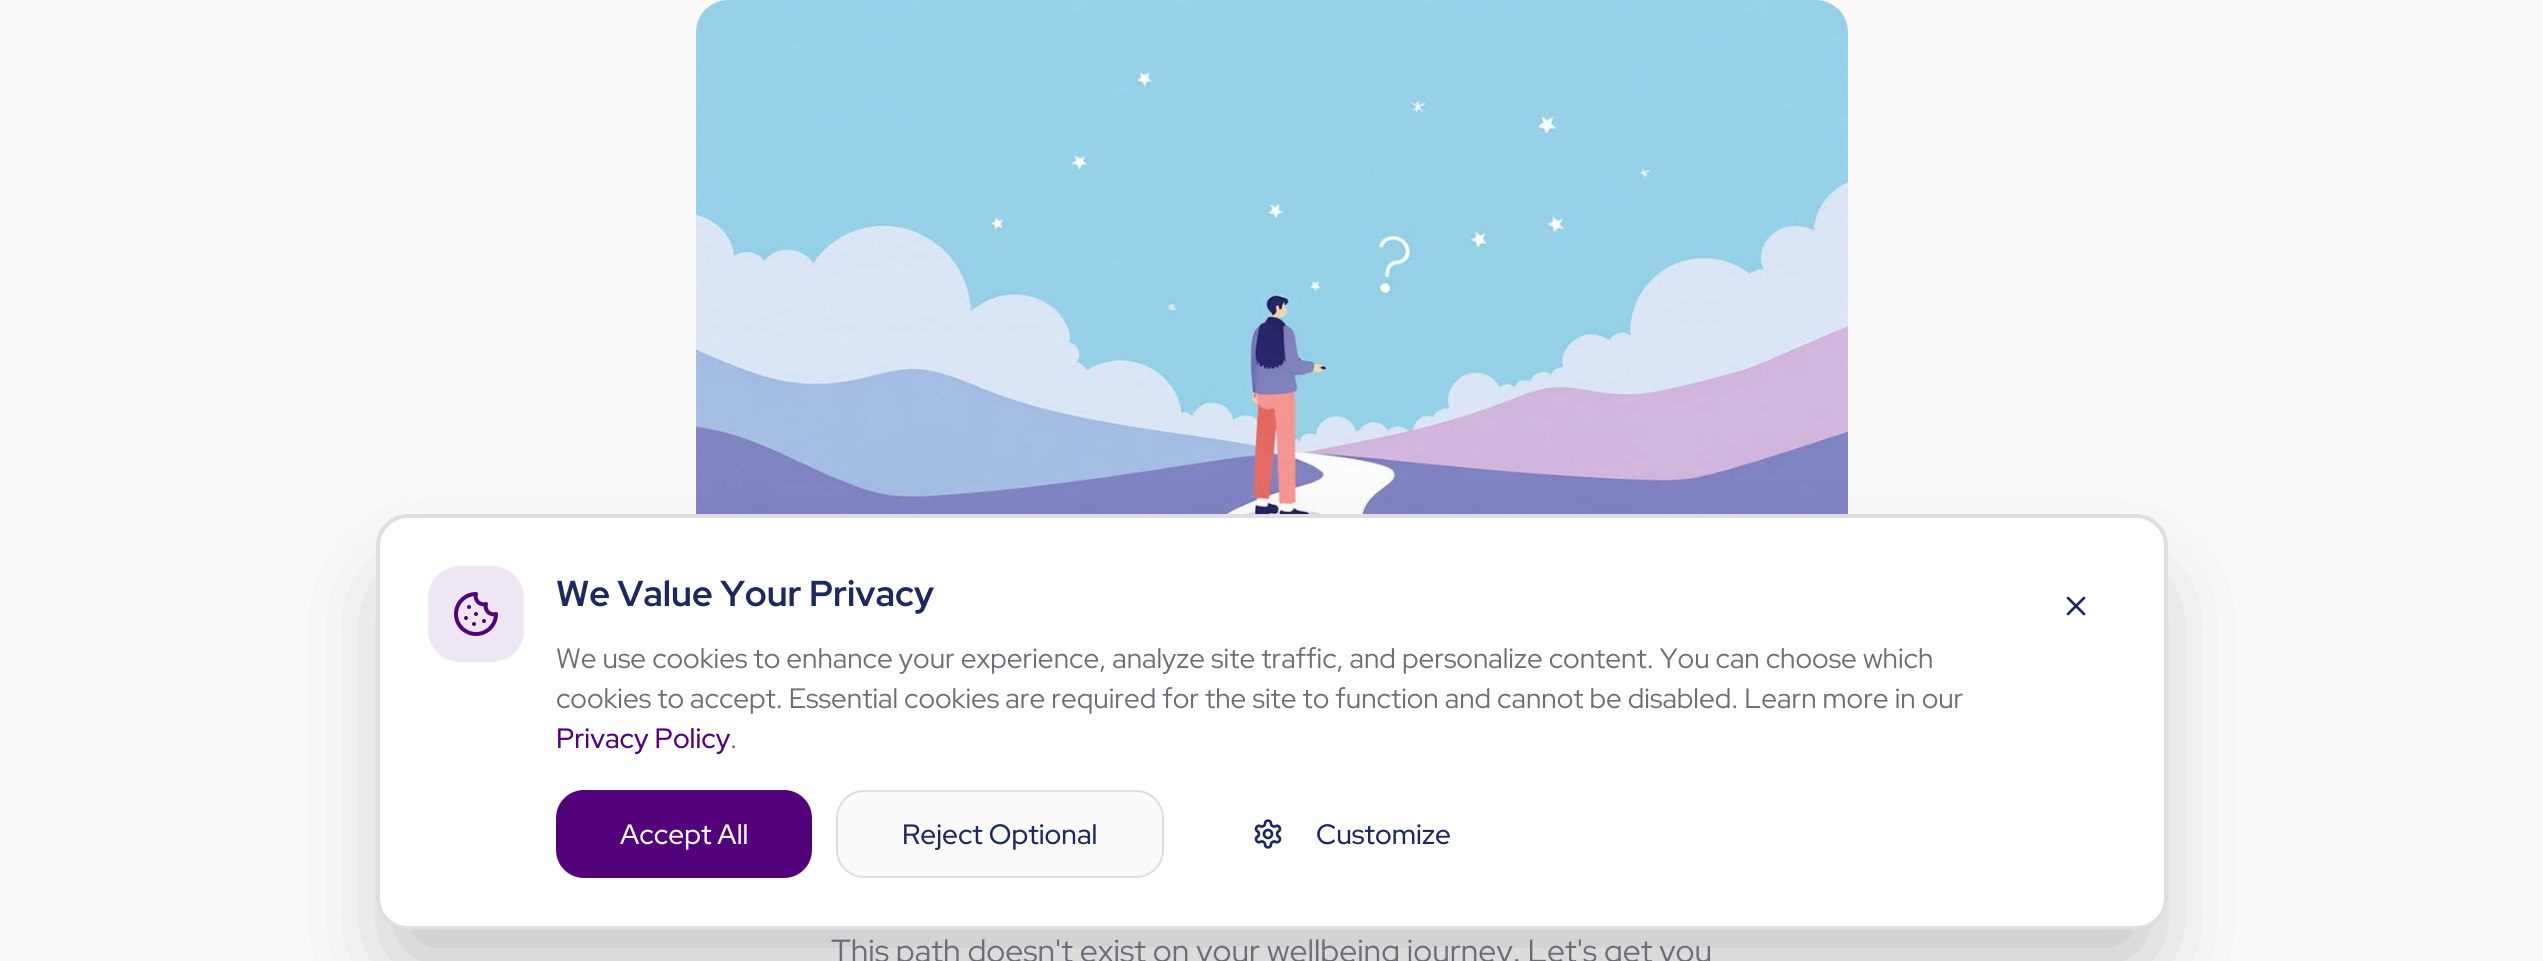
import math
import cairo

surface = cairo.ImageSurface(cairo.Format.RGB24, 2543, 961)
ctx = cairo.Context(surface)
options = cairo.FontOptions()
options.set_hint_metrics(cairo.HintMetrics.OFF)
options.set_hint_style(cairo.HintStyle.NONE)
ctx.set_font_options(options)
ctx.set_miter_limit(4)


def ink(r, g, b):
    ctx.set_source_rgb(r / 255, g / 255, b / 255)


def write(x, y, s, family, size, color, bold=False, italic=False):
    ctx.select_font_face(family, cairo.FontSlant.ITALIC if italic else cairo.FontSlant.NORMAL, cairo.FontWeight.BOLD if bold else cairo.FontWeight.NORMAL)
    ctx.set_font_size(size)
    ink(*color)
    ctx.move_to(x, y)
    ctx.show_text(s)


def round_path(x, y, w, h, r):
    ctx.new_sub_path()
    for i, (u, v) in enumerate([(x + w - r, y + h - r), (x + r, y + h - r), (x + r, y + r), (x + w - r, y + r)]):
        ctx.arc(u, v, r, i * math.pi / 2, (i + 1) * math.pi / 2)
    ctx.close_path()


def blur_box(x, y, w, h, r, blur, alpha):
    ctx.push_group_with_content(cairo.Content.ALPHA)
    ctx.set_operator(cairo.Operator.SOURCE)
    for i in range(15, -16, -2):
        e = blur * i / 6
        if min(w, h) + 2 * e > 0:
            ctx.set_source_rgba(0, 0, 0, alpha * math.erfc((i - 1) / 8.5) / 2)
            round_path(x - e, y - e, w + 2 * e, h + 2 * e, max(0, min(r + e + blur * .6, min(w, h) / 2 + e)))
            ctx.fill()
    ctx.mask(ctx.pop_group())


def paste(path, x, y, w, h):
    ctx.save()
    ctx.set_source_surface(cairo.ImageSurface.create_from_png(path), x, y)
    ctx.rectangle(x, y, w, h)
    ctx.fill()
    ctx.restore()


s1 = dict(family="Red Hat Display", size=36, color=(29, 41, 94), bold=True)
s2 = dict(family="Red Hat Display", size=28, color=(109, 109, 120))
s3 = dict(family="Red Hat Display Medium", size=28, color=(83, 1, 122))
s4 = dict(family="Red Hat Display Medium", size=28, color=(255, 255, 255))
s5 = dict(family="Red Hat Display Medium", size=28, color=(29, 41, 94))
s6 = dict(family="Red Hat Display", size=32, color=(109, 109, 120))

ink(250, 250, 250)
ctx.paint()
paste("pic3.png", 696, 0, 1152, 514)
ink(0, 0, 0)
blur_box(400, 588, 1744, 368, 8, 50, 0.25)
ink(255, 255, 255)
round_path(378, 516, 1788, 412, 30)
ctx.fill_preserve()
ink(221, 221, 227)
ctx.set_line_width(4)
ctx.stroke()
ink(238, 230, 242)
round_path(428, 566, 96, 96, 32)
ctx.fill()
paste("pic1.png", 454, 592, 44, 44)
write(556, 606, "We Value Your Privacy", **s1)
write(556, 668, "We use cookies to enhance your experience, analyze site traffic, and personalize content. You can choose which", **s2)
write(556, 708, "cookies to accept. Essential cookies are required for the site to function and cannot be disabled. Learn more in our", **s2)
write(556, 748, "Privacy Policy", **s3)
write(730, 748, ".", **s2)
ink(83, 1, 122)
round_path(556, 790, 256, 88, 28)
ctx.fill()
write(620, 844, "Accept All", **s4)
ink(250, 250, 250)
round_path(837, 791, 326, 86, 27)
ctx.fill_preserve()
ink(221, 221, 227)
ctx.set_line_width(2)
ctx.stroke()
write(902, 844, "Reject Optional", **s5)
paste("pic2.png", 1254, 819, 28, 30)
write(1316, 844, "Customize", **s5)
ctx.new_path()
ctx.move_to(2084, 598)
ctx.line_to(2068, 614)
ctx.move_to(2068, 598)
ctx.line_to(2084, 614)
ctx.set_line_width(2.7)
ctx.set_line_cap(cairo.LineCap.ROUND)
ctx.set_line_join(cairo.LineJoin.ROUND)
ctx.stroke()
write(831, 962, "This path doesn't exist on your wellbeing journey. Let's get you", **s6)
surface.write_to_png("screenshot.png")
